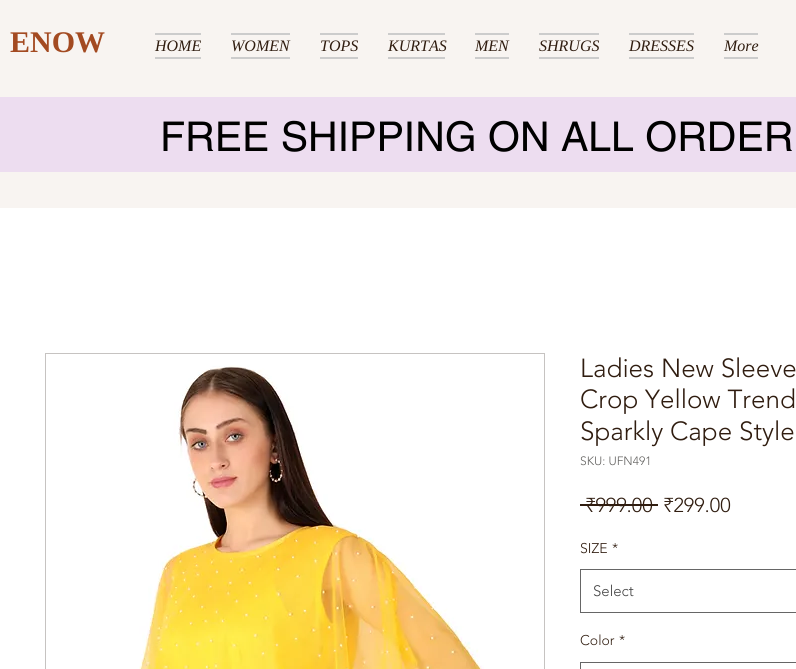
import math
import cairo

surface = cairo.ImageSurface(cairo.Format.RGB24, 796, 669)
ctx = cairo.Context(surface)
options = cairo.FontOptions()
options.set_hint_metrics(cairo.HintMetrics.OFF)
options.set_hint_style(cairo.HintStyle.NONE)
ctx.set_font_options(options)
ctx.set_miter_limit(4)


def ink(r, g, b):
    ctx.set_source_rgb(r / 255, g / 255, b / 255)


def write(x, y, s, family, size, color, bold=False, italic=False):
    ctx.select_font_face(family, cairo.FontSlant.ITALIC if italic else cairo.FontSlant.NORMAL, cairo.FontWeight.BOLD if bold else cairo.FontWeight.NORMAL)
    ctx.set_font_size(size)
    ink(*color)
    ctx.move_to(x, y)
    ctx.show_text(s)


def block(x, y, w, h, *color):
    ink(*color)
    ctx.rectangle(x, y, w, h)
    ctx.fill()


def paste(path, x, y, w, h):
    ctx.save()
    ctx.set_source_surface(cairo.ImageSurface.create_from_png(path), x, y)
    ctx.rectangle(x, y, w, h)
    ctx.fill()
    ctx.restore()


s1 = dict(family="Liberation Serif", size=30, color=(163, 74, 33), bold=True)
s2 = dict(family="Liberation Serif", size=16, color=(48, 29, 16), italic=True)
s3 = dict(family="helvetica", size=41, color=(0, 0, 0))
s4 = dict(family="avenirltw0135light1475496 Light", size=26, color=(48, 29, 16))
s5 = dict(family="avenirltw0135light1475496 Light", size=12, color=(99, 98, 96))
s6 = dict(family="avenirltw0135light1475496 Light", size=20, color=(48, 29, 16))
s7 = dict(family="avenirltw0135light1475496 Light", size=14, color=(48, 29, 16))
s8 = dict(family="avenirltw0135light1475496 Light", size=15, color=(68, 68, 68))

ink(255, 255, 255)
ctx.paint()
block(0, 0, 796, 208, 248, 244, 241)
write(10, 52, "ENOW", **s1)
block(155, 33, 46, 2, 204, 204, 204)
block(155, 57, 46, 2, 204, 204, 204)
write(155, 51, "HOME", **s2)
block(231, 33, 59, 2, 204, 204, 204)
block(231, 57, 59, 2, 204, 204, 204)
write(231, 51, "WOMEN", **s2)
block(320, 33, 38, 2, 204, 204, 204)
block(320, 57, 38, 2, 204, 204, 204)
write(320, 51, "TOPS", **s2)
block(388, 33, 57, 2, 204, 204, 204)
block(388, 57, 57, 2, 204, 204, 204)
write(388, 51, "KURTAS", **s2)
block(475, 33, 34, 2, 204, 204, 204)
block(475, 57, 34, 2, 204, 204, 204)
write(475, 51, "MEN", **s2)
block(539, 33, 60, 2, 204, 204, 204)
block(539, 57, 60, 2, 204, 204, 204)
write(539, 51, "SHRUGS", **s2)
block(629, 33, 65, 2, 204, 204, 204)
block(629, 57, 65, 2, 204, 204, 204)
write(629, 51, "DRESSES", **s2)
block(724, 33, 34, 2, 204, 204, 204)
block(724, 57, 34, 2, 204, 204, 204)
write(724, 51, "More", **s2)
block(0, 97, 796, 75, 237, 221, 240)
write(160, 151, "FREE SHIPPING ON ALL ORDER", **s3)
ctx.rectangle(45.5, 353.5, 499, 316)
ink(198, 195, 193)
ctx.set_line_width(1)
ctx.stroke()
paste("pic1.png", 139, 365, 345, 304)
write(580, 377, "Ladies New Sleeve", **s4)
write(580, 408, "Crop Yellow Trend", **s4)
write(580, 440, "Sparkly Cape Style", **s4)
write(580, 465, "SKU: UFN491", **s5)
write(585, 512, "₹999.00", **s6)
block(580, 504, 78, 2, 48, 29, 16)
write(663, 512, "₹299.00", **s6)
write(580, 553, "SIZE", **s7)
write(612, 553, "*", **s7)
ctx.rectangle(580.5, 569.5, 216, 43)
ink(102, 102, 102)
ctx.stroke()
write(593, 596, "Select", **s8)
write(580, 645, "Color", **s7)
write(619, 645, "*", **s7)
ctx.rectangle(580.5, 662.5, 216, 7)
ink(102, 102, 102)
ctx.stroke()
surface.write_to_png("screenshot.png")
